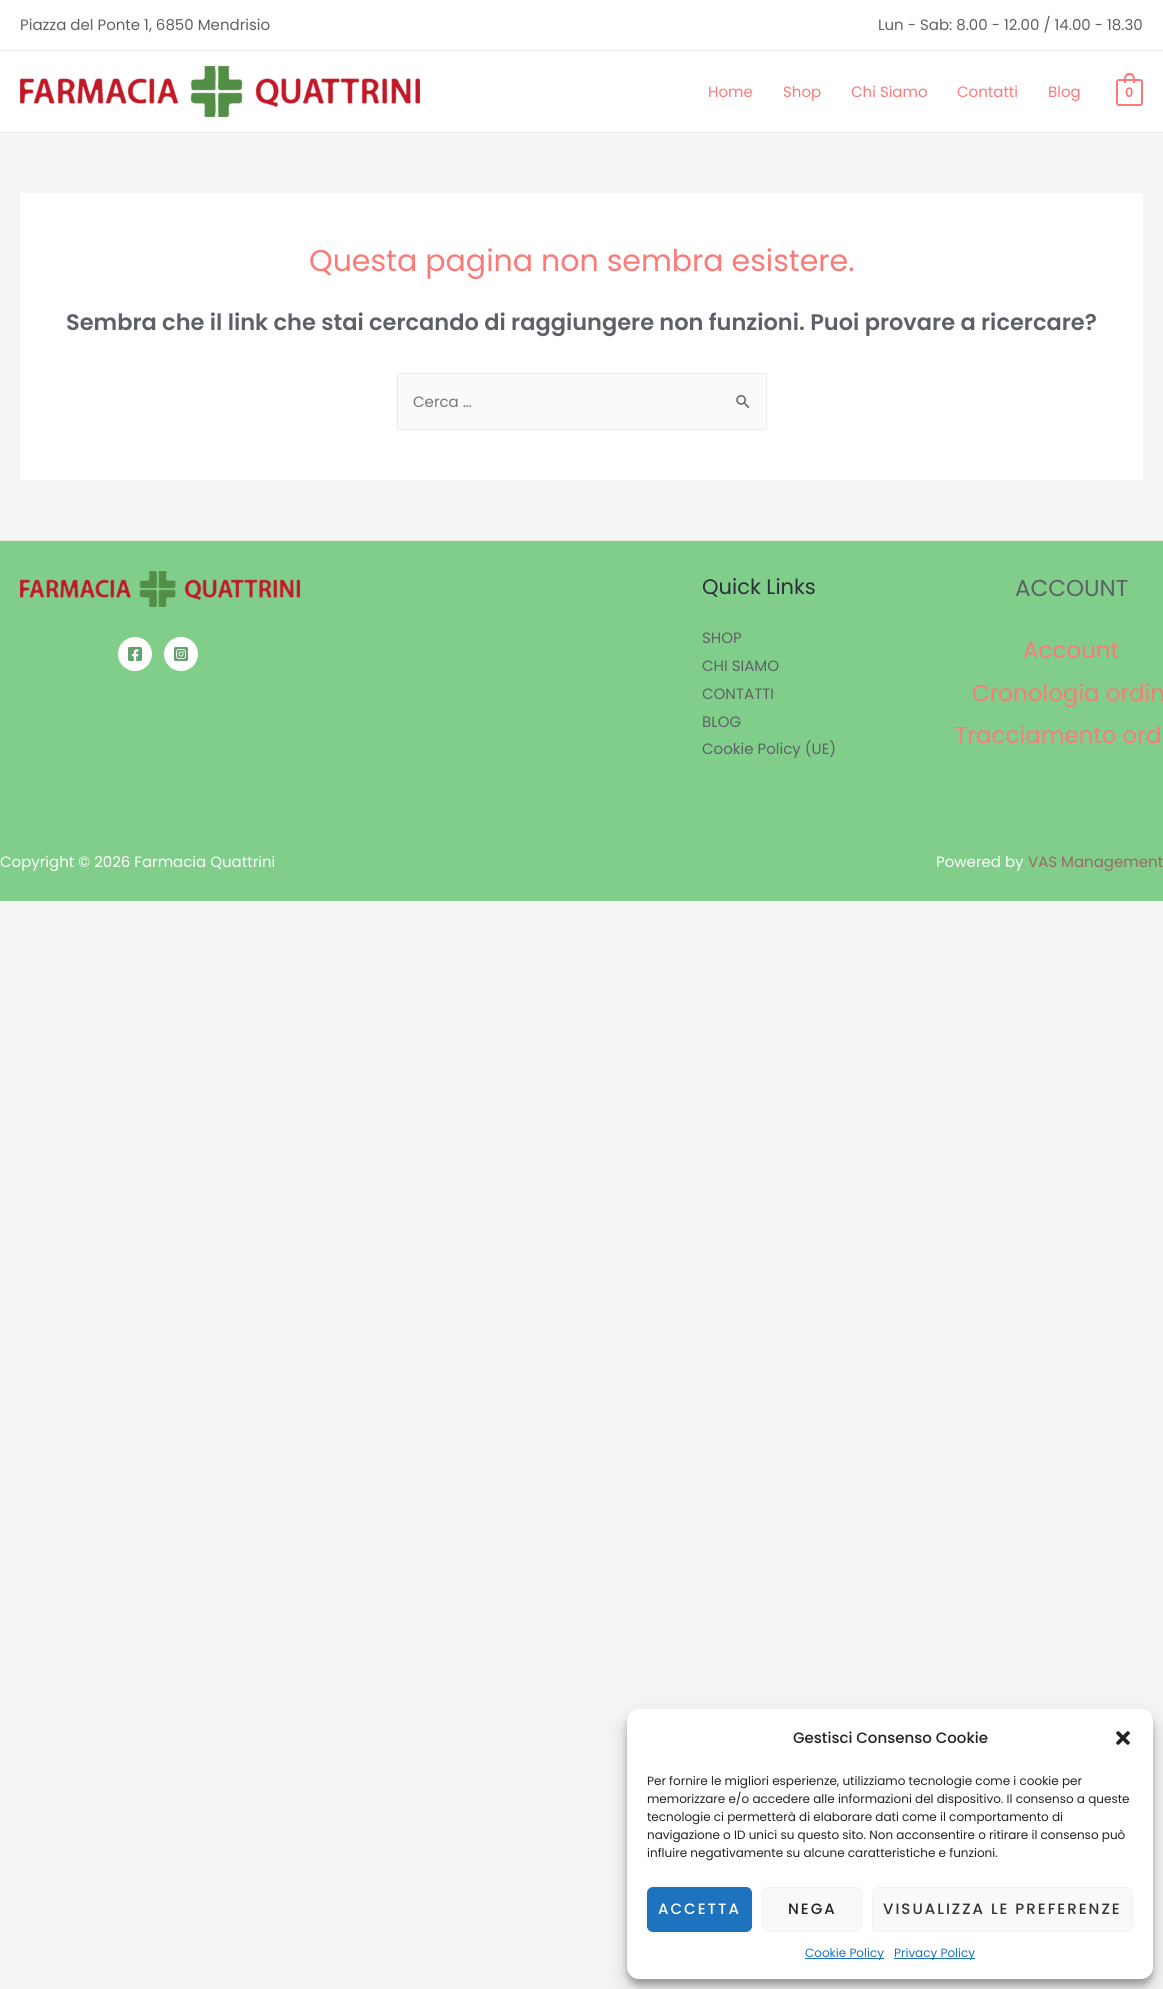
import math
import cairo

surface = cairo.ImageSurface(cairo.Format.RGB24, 1163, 1989)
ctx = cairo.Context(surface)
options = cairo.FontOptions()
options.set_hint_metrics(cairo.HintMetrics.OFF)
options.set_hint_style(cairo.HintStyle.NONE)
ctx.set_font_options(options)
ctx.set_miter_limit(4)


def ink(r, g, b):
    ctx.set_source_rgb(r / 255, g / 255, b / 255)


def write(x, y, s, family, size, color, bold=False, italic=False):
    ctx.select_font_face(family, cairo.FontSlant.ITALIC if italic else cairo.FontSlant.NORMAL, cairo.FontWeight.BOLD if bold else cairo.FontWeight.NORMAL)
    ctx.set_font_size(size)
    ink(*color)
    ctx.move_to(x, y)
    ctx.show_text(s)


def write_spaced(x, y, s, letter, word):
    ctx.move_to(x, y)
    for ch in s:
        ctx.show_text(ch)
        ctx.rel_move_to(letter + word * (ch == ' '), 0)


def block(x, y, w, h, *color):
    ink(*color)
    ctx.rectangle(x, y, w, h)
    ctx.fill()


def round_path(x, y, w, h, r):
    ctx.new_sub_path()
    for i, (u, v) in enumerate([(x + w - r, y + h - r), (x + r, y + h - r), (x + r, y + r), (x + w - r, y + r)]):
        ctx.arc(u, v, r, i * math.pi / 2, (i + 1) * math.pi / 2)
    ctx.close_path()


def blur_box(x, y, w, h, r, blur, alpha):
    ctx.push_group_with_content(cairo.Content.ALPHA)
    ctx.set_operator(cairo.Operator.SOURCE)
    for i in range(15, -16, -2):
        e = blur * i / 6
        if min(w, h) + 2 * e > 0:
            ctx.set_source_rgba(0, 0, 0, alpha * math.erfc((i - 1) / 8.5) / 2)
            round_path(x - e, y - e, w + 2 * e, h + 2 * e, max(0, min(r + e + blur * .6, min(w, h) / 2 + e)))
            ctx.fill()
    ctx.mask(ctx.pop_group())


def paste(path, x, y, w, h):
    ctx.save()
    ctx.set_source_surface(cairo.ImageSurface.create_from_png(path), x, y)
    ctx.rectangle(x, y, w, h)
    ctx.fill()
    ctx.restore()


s1 = dict(family="Poppins", size=15, color=(93, 97, 103))
s2 = dict(family="Poppins", size=15, color=(252, 121, 120))
s3 = dict(family="Poppins SemiBold", size=13, color=(252, 121, 120))
s4 = dict(family="Poppins", size=30, color=(252, 121, 120))
s5 = dict(family="Poppins SemiBold", size=22.5, color=(93, 97, 103))
s6 = dict(family="Poppins", size=15, color=(117, 117, 117))
s7 = dict(family="Poppins", size=21, color=(43, 47, 56))
s8 = dict(family="Poppins", size=23, color=(93, 97, 103))
s9 = dict(family="Poppins", size=23, color=(252, 121, 120))
s10 = dict(family="Poppins", size=15, color=(255, 255, 255))
s11 = dict(family="Poppins", size=15, color=(153, 105, 105))
s12 = dict(family="Poppins Medium", size=15, color=(34, 34, 34))
s13 = dict(family="Poppins", size=12, color=(34, 34, 34))
s14 = dict(family="Poppins", size=12, color=(30, 115, 190))

ink(245, 245, 245)
ctx.paint()
block(0, 0, 1163, 50, 255, 255, 255)
block(0, 50, 1163, 1, 234, 234, 234)
write(20, 30, "Piazza del Ponte 1, 6850 Mendrisio", **s1)
write(878, 30, "Lun - Sab: 8.00 - 12.00 / 14.00 - 18.30", **s1)
block(0, 51, 1163, 81, 255, 255, 255)
block(0, 132, 1163, 1, 234, 234, 234)
paste("pic1.png", 20, 66, 400, 51)
write(708, 97, "Home", **s2)
write(783, 97, "Shop", **s2)
write(851, 97, "Chi Siamo", **s2)
write(957, 97, "Contatti", **s2)
write(1048, 97, "Blog", **s2)
round_path(1117, 80, 25, 25, 2)
ctx.stroke()
ctx.set_fill_rule(cairo.FillRule.EVEN_ODD)
ctx.new_path()
ctx.move_to(1129.5, 73)
ctx.curve_to(1135.5, 73, 1135, 79, 1135, 83)
ctx.line_to(1124, 83)
ctx.curve_to(1124, 79, 1123.5, 73, 1129.5, 73)
ctx.close_path()
ctx.move_to(1129.5, 75)
ctx.curve_to(1133.5, 75, 1133, 80, 1133, 83)
ctx.line_to(1126, 83)
ctx.curve_to(1126, 80, 1125, 75, 1129.5, 75)
ctx.close_path()
ctx.fill()
write(1125, 97, "0", **s3)
block(20, 193, 1123, 287, 255, 255, 255)
write(309, 271, "Questa pagina non sembra esistere.", **s4)
write(66, 330, "Sembra che il link che stai cercando di raggiungere non funzioni. Puoi provare a ricercare?", **s5)
ink(250, 250, 250)
round_path(397.5, 373.5, 369, 56, 1.5)
ctx.fill_preserve()
ink(234, 234, 234)
ctx.set_line_width(1)
ctx.stroke()
write(413, 407, "Cerca …", **s6)
paste("pic2.png", 736, 395, 14, 13)
block(0, 541, 1163, 280, 128, 206, 138)
block(0, 540, 1163, 1, 230, 230, 230)
paste("pic3.png", 20, 571, 280, 36)
ink(255, 255, 255)
ctx.arc(135, 654, 17, 0, 2 * math.pi)
ctx.fill()
paste("pic4.png", 128, 647, 14, 14)
ctx.arc(181, 654, 17, 0, 2 * math.pi)
ctx.fill()
paste("pic5.png", 174, 647, 14, 14)
write(702, 594, "Quick Links", **s7)
write(702, 643, "SHOP", **s1)
write(702, 671, "CHI SIAMO", **s1)
write(702, 699, "CONTATTI", **s1)
write(702, 727, "BLOG", **s1)
write(702, 754, "Cookie Policy (UE)", **s1)
write(1015, 596, "ACCOUNT", **s8)
write(1023, 658, "Account", **s9)
write(972, 701, "Cronologia ordin", **s9)
write(955, 743, "Tracciamento ord", **s9)
block(0, 821, 1163, 80, 128, 206, 138)
write(0, 867, "Copyright © 2026 Farmacia Quattrini", **s10)
write(936, 867, "Powered by", **s10)
write(1028, 867, "VAS Management", **s11)
ink(0, 0, 0)
blur_box(627, 1715, 526, 270, 12, 3, 0.23)
blur_box(627, 1719, 526, 270, 12, 10, 0.19)
ink(255, 255, 255)
round_path(627, 1709, 526, 270, 12)
ctx.fill()
write(793, 1743, "Gestisci Consenso Cookie", **s12)
paste("pic6.png", 1116, 1731, 14, 14)
write(647, 1785, "Per fornire le migliori esperienze, utilizziamo tecnologie come i cookie per", **s13)
write(647, 1803, "memorizzare e/o accedere alle informazioni del dispositivo. Il consenso a queste", **s13)
write(647, 1821, "tecnologie ci permetterà di elaborare dati come il comportamento di", **s13)
write(647, 1839, "navigazione o ID unici su questo sito. Non acconsentire o ritirare il consenso può", **s13)
write(647, 1857, "influire negativamente su alcune caratteristiche e funzioni.", **s13)
ink(30, 115, 190)
round_path(647.5, 1887.5, 104, 44, 5.5)
ctx.fill_preserve()
ctx.stroke()
ctx.select_font_face("Poppins Medium")
ctx.set_font_size(15)
ink(255, 255, 255)
write_spaced(658, 1914, "ACCETTA", 2, 0)
ink(249, 249, 249)
round_path(762.5, 1887.5, 99, 44, 5.5)
ctx.fill_preserve()
ink(242, 242, 242)
ctx.stroke()
ink(34, 34, 34)
write_spaced(788, 1914, "NEGA", 2, 0)
ink(249, 249, 249)
round_path(872.5, 1887.5, 260, 44, 5.5)
ctx.fill_preserve()
ink(242, 242, 242)
ctx.stroke()
ink(51, 51, 51)
write_spaced(883, 1914, "VISUALIZZA LE PREFERENZE", 2, 0)
block(805, 1958, 79, 1, 30, 115, 190)
write(805, 1957, "Cookie Policy", **s14)
block(894, 1958, 81, 1, 30, 115, 190)
write(894, 1957, "Privacy Policy", **s14)
surface.write_to_png("screenshot.png")
